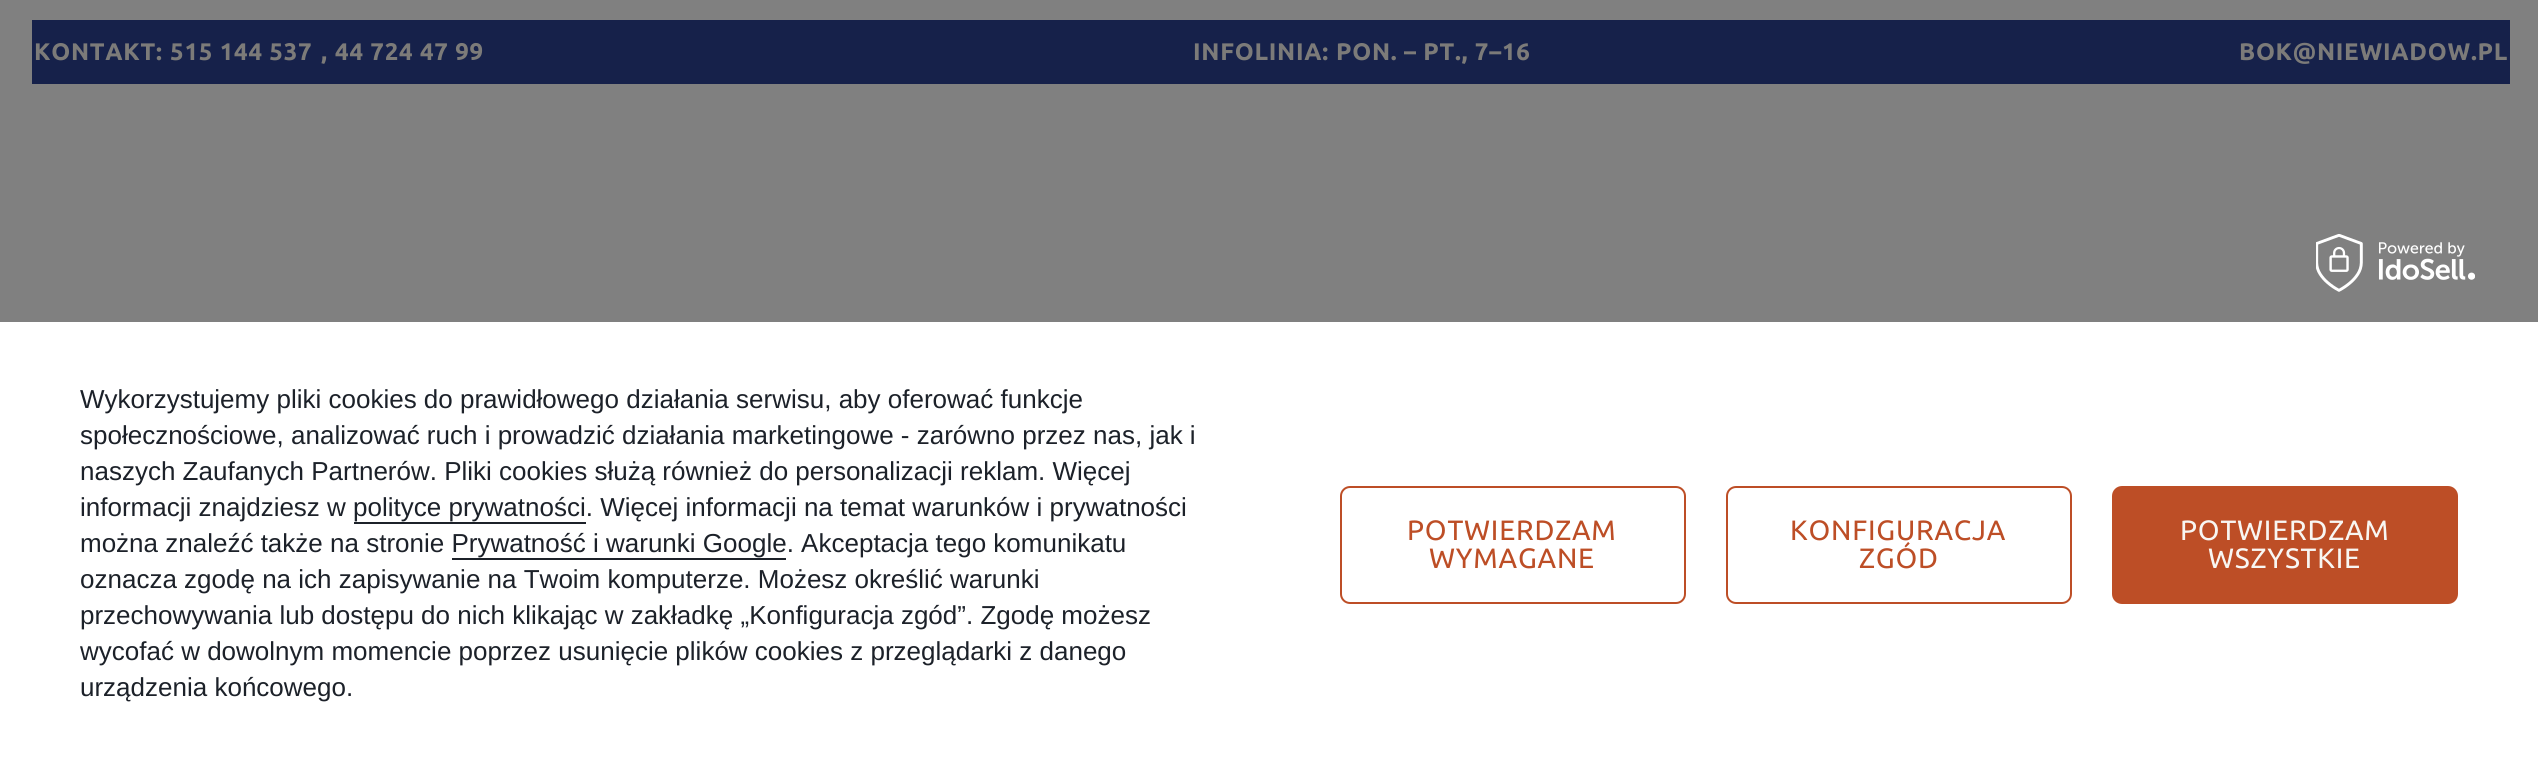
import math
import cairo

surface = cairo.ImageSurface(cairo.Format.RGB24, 2538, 766)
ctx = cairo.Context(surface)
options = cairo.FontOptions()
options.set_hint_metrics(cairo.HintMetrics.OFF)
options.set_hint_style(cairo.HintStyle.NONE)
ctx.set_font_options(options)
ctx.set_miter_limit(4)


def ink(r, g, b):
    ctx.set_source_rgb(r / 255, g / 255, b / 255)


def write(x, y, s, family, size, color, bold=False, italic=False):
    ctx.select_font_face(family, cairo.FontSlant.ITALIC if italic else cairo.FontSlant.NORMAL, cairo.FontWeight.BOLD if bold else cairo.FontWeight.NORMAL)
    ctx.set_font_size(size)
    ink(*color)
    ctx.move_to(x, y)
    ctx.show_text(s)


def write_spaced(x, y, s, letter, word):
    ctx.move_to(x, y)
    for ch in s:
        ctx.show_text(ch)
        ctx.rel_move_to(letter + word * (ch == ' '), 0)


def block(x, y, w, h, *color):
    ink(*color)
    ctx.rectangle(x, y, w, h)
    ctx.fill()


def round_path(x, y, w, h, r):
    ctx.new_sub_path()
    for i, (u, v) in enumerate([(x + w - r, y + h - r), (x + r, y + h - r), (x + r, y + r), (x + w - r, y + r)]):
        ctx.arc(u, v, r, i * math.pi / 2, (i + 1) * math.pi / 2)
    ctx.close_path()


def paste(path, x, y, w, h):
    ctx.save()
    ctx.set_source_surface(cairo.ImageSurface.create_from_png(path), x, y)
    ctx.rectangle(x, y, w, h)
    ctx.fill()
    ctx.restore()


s1 = dict(family="Liberation Sans", size=26, color=(28, 33, 41))

ink(128, 128, 128)
ctx.paint()
block(32, 20, 2478, 64, 22, 33, 74)
ctx.select_font_face("Ubuntu", cairo.FontSlant.NORMAL, cairo.FontWeight.BOLD)
ctx.set_font_size(24)
ink(124, 123, 121)
write_spaced(34, 60, "KONTAKT:", 0.75, 0)
write_spaced(170, 60, "515 144 537", 0.75, 0)
write_spaced(321, 60, ",", 0.75, 0)
write_spaced(335, 60, "44 724 47 99", 0.75, 0)
write_spaced(1193, 60, "INFOLINIA:", 0.75, 0)
write_spaced(1336, 60, "PON. – PT., 7–16", 0.75, 0)
write_spaced(2239, 60, "BOK@NIEWIADOW.PL", 0.75, 0)
block(0, 322, 2538, 444, 255, 255, 255)
paste("pic1.png", 2316, 234, 159, 58)
write(80, 408, "Wykorzystujemy pliki cookies do prawidłowego działania serwisu, aby oferować funkcje", **s1)
write(80, 444, "społecznościowe, analizować ruch i prowadzić działania marketingowe - zarówno przez nas, jak i", **s1)
write(80, 480, "naszych Zaufanych Partnerów. Pliki cookies służą również do personalizacji reklam. Więcej", **s1)
write(80, 516, "informacji znajdziesz w polityce prywatności. Więcej informacji na temat warunków i prywatności", **s1)
block(354, 522, 232, 2, 28, 33, 41)
write(80, 552, "można znaleźć także na stronie Prywatność i warunki Google. Akceptacja tego komunikatu", **s1)
block(452, 558, 334, 2, 28, 33, 41)
write(80, 588, "oznacza zgodę na ich zapisywanie na Twoim komputerze. Możesz określić warunki", **s1)
write(80, 624, "przechowywania lub dostępu do nich klikając w zakładkę „Konfiguracja zgód”. Zgodę możesz", **s1)
write(80, 660, "wycofać w dowolnym momencie poprzez usunięcie plików cookies z przeglądarki z danego", **s1)
write(80, 696, "urządzenia końcowego.", **s1)
round_path(1341, 487, 344, 116, 9)
ink(189, 78, 38)
ctx.stroke()
ctx.select_font_face("Ubuntu")
ctx.set_font_size(28)
write_spaced(1407, 540, "POTWIERDZAM", 0.8, 0)
write_spaced(1429, 568, "WYMAGANE", 0.8, 0)
round_path(1727, 487, 344, 116, 9)
ctx.stroke()
write_spaced(1790, 540, "KONFIGURACJA", 0.8, 0)
write_spaced(1859, 568, "ZGÓD", 0.8, 0)
round_path(2113, 487, 344, 116, 9)
ctx.fill_preserve()
ctx.stroke()
ink(248, 246, 242)
write_spaced(2180, 540, "POTWIERDZAM", 0.8, 0)
write_spaced(2208, 568, "WSZYSTKIE", 0.8, 0)
surface.write_to_png("screenshot.png")
